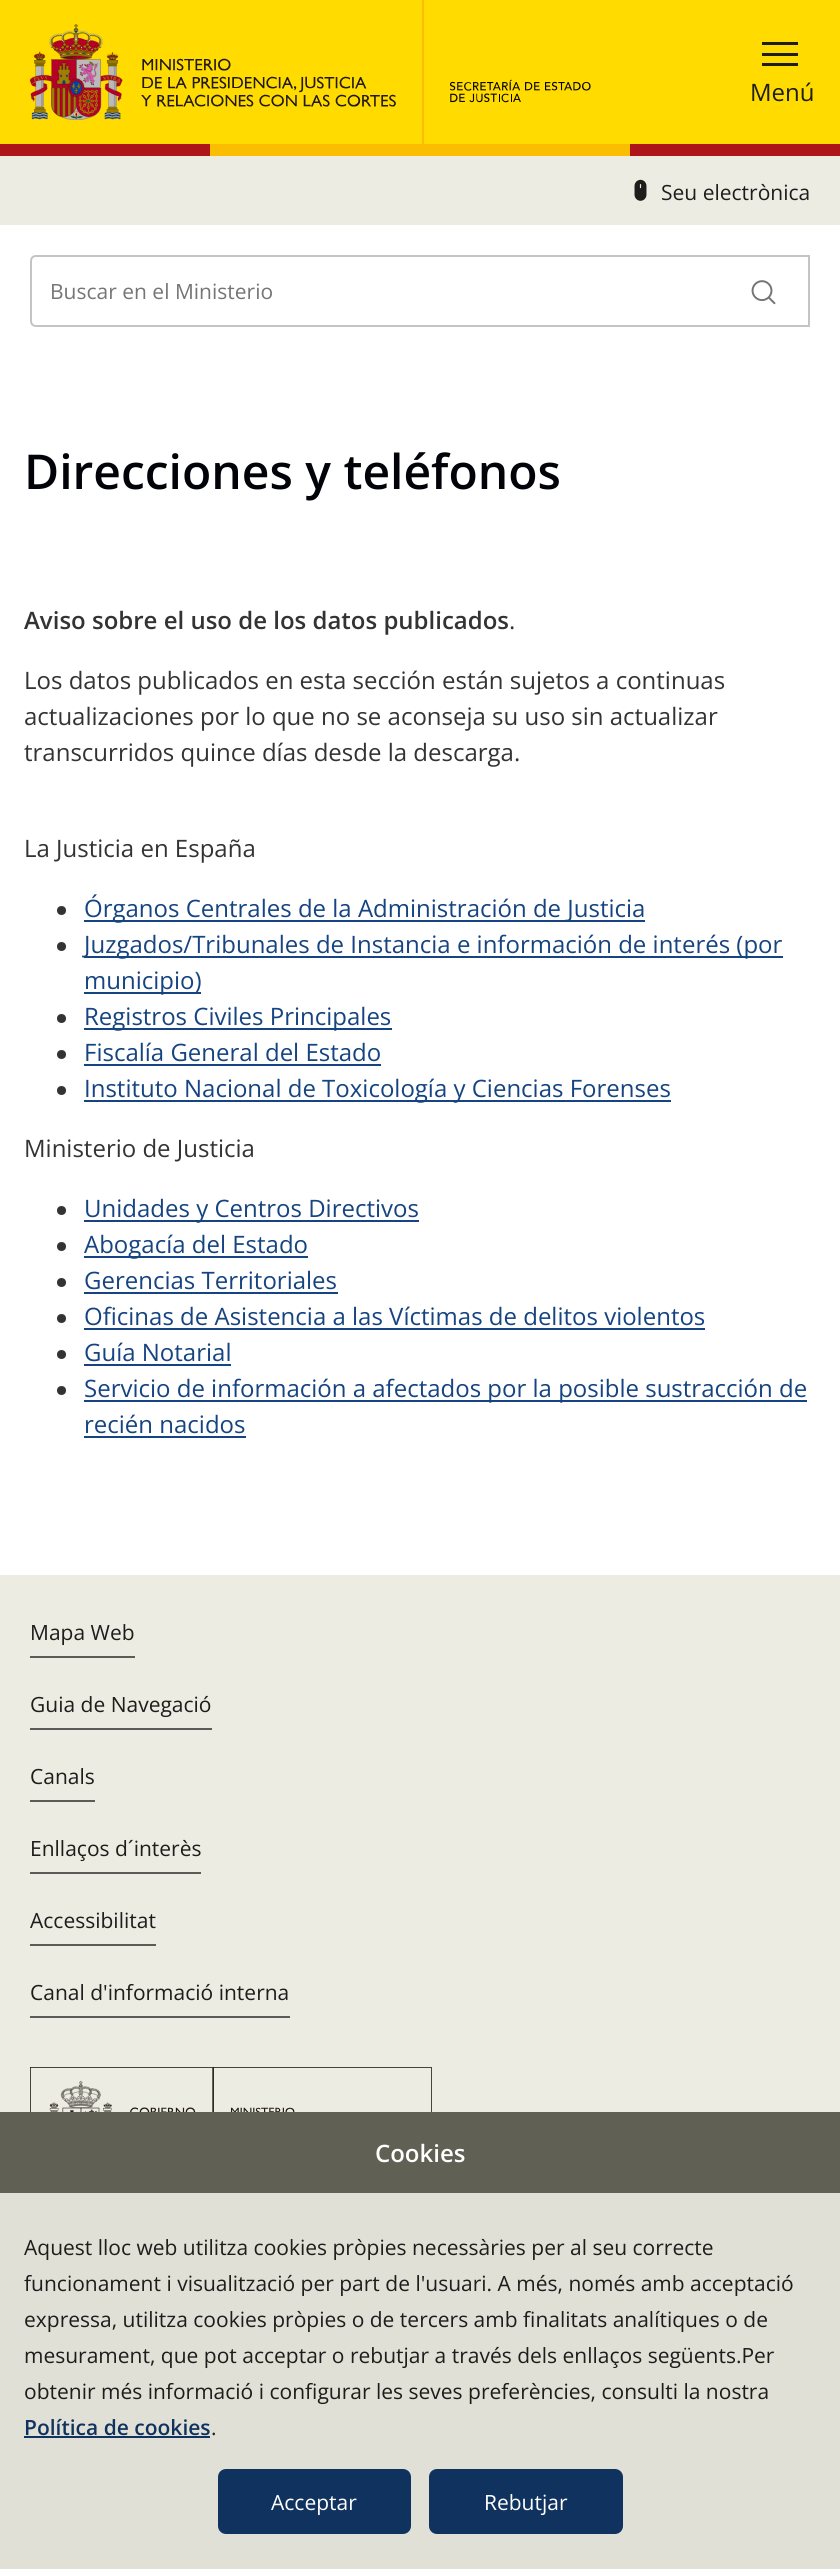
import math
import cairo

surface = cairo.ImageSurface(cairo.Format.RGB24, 840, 2569)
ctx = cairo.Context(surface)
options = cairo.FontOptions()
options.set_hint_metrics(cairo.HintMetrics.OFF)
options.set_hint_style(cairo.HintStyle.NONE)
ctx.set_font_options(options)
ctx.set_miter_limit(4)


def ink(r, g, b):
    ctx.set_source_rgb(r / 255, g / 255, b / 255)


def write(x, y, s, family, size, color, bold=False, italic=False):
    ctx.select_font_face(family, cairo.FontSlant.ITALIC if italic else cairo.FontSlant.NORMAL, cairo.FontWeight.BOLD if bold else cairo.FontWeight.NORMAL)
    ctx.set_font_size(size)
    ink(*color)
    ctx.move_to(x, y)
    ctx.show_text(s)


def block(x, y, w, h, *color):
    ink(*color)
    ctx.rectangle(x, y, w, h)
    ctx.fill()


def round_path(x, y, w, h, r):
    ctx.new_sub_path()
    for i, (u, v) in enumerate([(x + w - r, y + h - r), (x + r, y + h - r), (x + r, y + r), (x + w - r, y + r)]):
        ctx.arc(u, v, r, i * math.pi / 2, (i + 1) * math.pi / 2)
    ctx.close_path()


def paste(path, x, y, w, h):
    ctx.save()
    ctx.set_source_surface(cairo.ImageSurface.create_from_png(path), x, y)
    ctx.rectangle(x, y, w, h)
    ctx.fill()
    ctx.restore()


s1 = dict(family="Open Sans", size=24, color=(29, 29, 27))
s2 = dict(family="Open Sans", size=21, color=(29, 29, 27))
s3 = dict(family="Open Sans", size=21, color=(117, 117, 117))
s4 = dict(family="Open Sans SemiBold", size=48, color=(1, 3, 9))
s5 = dict(family="Open Sans SemiBold", size=24, color=(51, 51, 51))
s6 = dict(family="Open Sans", size=24, color=(51, 51, 51))
s7 = dict(family="Open Sans", size=24, color=(21, 68, 129))
s8 = dict(family="Open Sans SemiBold", size=24, color=(255, 255, 255))
s9 = dict(family="Open Sans SemiBold", size=21, color=(16, 50, 95))
s10 = dict(family="Open Sans", size=21, color=(255, 255, 255))

ink(255, 255, 255)
ctx.paint()
block(0, 0, 840, 144, 255, 219, 0)
paste("pic1.png", 30, 24, 366, 96)
block(422, 0, 2, 150, 250, 189, 0)
paste("pic2.png", 450, 79, 141, 24)
block(762, 42, 36, 3, 29, 29, 27)
block(762, 53, 36, 3, 29, 29, 27)
block(762, 63, 36, 3, 29, 29, 27)
write(750, 101, "Menú", **s1)
block(210, 144, 420, 12, 250, 189, 0)
block(0, 144, 210, 12, 173, 21, 25)
block(630, 144, 210, 12, 173, 21, 25)
block(0, 156, 840, 69, 236, 236, 226)
paste("pic3.png", 634, 179, 13, 22)
write(661, 200, "Seu electrònica", **s2)
ctx.new_path()
ctx.move_to(36, 256)
ctx.line_to(809, 256)
ctx.line_to(809, 326)
ctx.line_to(36, 326)
ctx.curve_to(33, 326, 31, 324, 31, 321)
ctx.line_to(31, 261)
ctx.curve_to(31, 258, 33, 256, 36, 256)
ctx.close_path()
ink(196, 196, 196)
ctx.stroke()
write(50, 299, "Buscar en el Ministerio", **s3)
paste("pic4.png", 751, 280, 25, 25)
write(24, 489, "Direcciones y teléfonos", **s4)
write(24, 629, "Aviso sobre el uso de los datos publicados", **s5)
write(509, 629, ".", **s6)
write(24, 689, "Los datos publicados en esta sección están sujetos a continuas", **s6)
write(24, 725, "actualizaciones por lo que no se aconseja su uso sin actualizar", **s6)
write(24, 761, "transcurridos quince días desde la descarga.", **s6)
write(24, 857, "La Justicia en España", **s6)
ctx.new_path()
ctx.arc(61.5, 910.5, 4.5, 0, 2 * math.pi)
ctx.fill()
block(84, 920, 561, 2, 21, 68, 129)
write(84, 917, "Órganos Centrales de la Administración de Justicia", **s7)
ink(51, 51, 51)
ctx.new_path()
ctx.arc(61.5, 946.5, 4.5, 0, 2 * math.pi)
ctx.fill()
block(84, 956, 699, 2, 21, 68, 129)
write(84, 953, "Juzgados/Tribunales de Instancia e información de interés (por", **s7)
block(84, 992, 117, 2, 21, 68, 129)
write(84, 989, "municipio)", **s7)
ink(51, 51, 51)
ctx.new_path()
ctx.arc(61.5, 1018.5, 4.5, 0, 2 * math.pi)
ctx.fill()
block(84, 1028, 308, 2, 21, 68, 129)
write(84, 1025, "Registros Civiles Principales", **s7)
ink(51, 51, 51)
ctx.new_path()
ctx.arc(61.5, 1054.5, 4.5, 0, 2 * math.pi)
ctx.fill()
write(84, 1061, "Fiscalía General del Estado", **s7)
block(84, 1064, 297, 2, 21, 68, 129)
ink(51, 51, 51)
ctx.new_path()
ctx.arc(61.5, 1090.5, 4.5, 0, 2 * math.pi)
ctx.fill()
block(84, 1100, 587, 2, 21, 68, 129)
write(84, 1097, "Instituto Nacional de Toxicología y Ciencias Forenses", **s7)
write(24, 1157, "Ministerio de Justicia", **s6)
ctx.new_path()
ctx.arc(61.5, 1210.5, 4.5, 0, 2 * math.pi)
ctx.fill()
block(84, 1220, 335, 2, 21, 68, 129)
write(84, 1217, "Unidades y Centros Directivos", **s7)
ink(51, 51, 51)
ctx.new_path()
ctx.arc(61.5, 1246.5, 4.5, 0, 2 * math.pi)
ctx.fill()
block(84, 1256, 224, 2, 21, 68, 129)
write(84, 1253, "Abogacía del Estado", **s7)
ink(51, 51, 51)
ctx.new_path()
ctx.arc(61.5, 1282.5, 4.5, 0, 2 * math.pi)
ctx.fill()
write(84, 1289, "Gerencias Territoriales", **s7)
block(84, 1292, 254, 2, 21, 68, 129)
ink(51, 51, 51)
ctx.new_path()
ctx.arc(61.5, 1318.5, 4.5, 0, 2 * math.pi)
ctx.fill()
write(84, 1325, "Oficinas de Asistencia a las Víctimas de delitos violentos", **s7)
block(84, 1328, 621, 2, 21, 68, 129)
ink(51, 51, 51)
ctx.new_path()
ctx.arc(61.5, 1354.5, 4.5, 0, 2 * math.pi)
ctx.fill()
write(84, 1361, "Guía Notarial", **s7)
block(84, 1364, 147, 2, 21, 68, 129)
ink(51, 51, 51)
ctx.new_path()
ctx.arc(61.5, 1390.5, 4.5, 0, 2 * math.pi)
ctx.fill()
block(84, 1400, 723, 2, 21, 68, 129)
write(84, 1397, "Servicio de información a afectados por la posible sustracción de", **s7)
write(84, 1433, "recién nacidos", **s7)
block(84, 1436, 162, 2, 21, 68, 129)
block(0, 1575, 840, 537, 236, 236, 226)
write(30, 1640, "Mapa Web", **s2)
block(30, 1656, 105, 2, 91, 91, 87)
write(30, 1712, "Guia de Navegació", **s2)
block(30, 1728, 182, 2, 91, 91, 87)
write(30, 1784, "Canals", **s2)
block(30, 1800, 65, 2, 91, 91, 87)
write(30, 1856, "Enllaços d´interès", **s2)
block(30, 1872, 171, 2, 91, 91, 87)
write(30, 1928, "Accessibilitat", **s2)
block(30, 1944, 126, 2, 91, 91, 87)
write(30, 2000, "Canal d'informació interna", **s2)
block(30, 2016, 260, 2, 91, 91, 87)
paste("pic5.png", 30, 2067, 402, 45)
block(0, 2193, 840, 376, 224, 224, 215)
block(0, 2112, 840, 81, 96, 96, 85)
write(375, 2162, "Cookies", **s8)
write(24, 2255, "Aquest lloc web utilitza cookies pròpies necessàries per al seu correcte", **s2)
write(24, 2291, "funcionament i visualització per part de l'usuari. A més, només amb acceptació", **s2)
write(24, 2327, "expressa, utilitza cookies pròpies o de tercers amb finalitats analítiques o de", **s2)
write(24, 2363, "mesurament, que pot acceptar o rebutjar a través dels enllaços següents.Per", **s2)
write(24, 2399, "obtenir més informació i configurar les seves preferències, consulti la nostra", **s2)
write(24, 2435, "Política de cookies", **s9)
block(24, 2436, 186, 2, 16, 50, 95)
write(211, 2435, ".", **s2)
ink(16, 50, 95)
round_path(218, 2469, 193, 65, 8)
ctx.fill()
write(271, 2510, "Acceptar", **s10)
ink(16, 50, 95)
round_path(429, 2469, 194, 65, 8)
ctx.fill()
write(484, 2510, "Rebutjar", **s10)
surface.write_to_png("screenshot.png")
